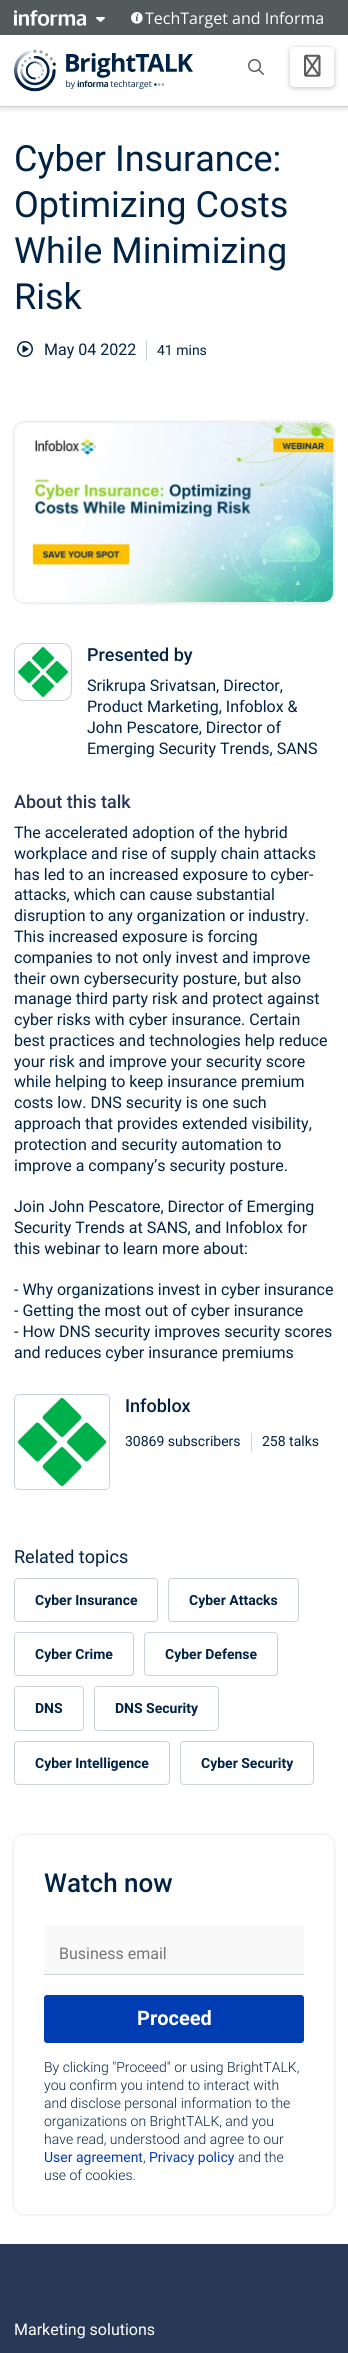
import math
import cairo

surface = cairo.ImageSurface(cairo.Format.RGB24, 348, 2353)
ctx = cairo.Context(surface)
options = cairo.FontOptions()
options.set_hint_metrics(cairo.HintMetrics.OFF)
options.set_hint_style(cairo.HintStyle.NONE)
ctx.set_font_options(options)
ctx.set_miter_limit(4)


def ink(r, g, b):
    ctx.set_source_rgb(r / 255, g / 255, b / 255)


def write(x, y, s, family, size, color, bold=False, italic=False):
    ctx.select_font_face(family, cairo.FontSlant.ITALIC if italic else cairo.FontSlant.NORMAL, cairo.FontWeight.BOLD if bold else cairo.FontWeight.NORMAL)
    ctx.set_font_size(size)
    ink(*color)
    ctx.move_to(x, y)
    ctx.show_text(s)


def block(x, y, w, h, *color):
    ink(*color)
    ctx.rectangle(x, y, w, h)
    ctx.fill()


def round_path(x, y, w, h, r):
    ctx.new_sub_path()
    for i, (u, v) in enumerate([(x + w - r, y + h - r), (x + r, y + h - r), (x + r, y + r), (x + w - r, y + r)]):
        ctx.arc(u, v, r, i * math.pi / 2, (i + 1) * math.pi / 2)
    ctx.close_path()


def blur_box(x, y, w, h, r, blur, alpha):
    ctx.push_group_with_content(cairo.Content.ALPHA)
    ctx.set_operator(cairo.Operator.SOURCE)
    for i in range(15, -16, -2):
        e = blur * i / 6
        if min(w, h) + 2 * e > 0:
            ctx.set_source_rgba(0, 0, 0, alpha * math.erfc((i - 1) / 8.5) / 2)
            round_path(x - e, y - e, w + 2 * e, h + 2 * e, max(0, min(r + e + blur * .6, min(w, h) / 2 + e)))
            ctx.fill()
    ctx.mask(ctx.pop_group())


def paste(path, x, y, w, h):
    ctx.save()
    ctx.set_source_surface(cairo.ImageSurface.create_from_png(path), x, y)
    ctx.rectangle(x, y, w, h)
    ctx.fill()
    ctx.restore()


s1 = dict(family="Open Sans", size=16, color=(255, 255, 255))
s2 = dict(family="Roboto", size=36, color=(0, 34, 68))
s3 = dict(family="Roboto", size=16, color=(0, 34, 68))
s4 = dict(family="Roboto", size=14, color=(0, 34, 68))
s5 = dict(family="Roboto Medium", size=18, color=(0, 34, 68))
s6 = dict(family="Roboto Medium", size=18, color=(40, 56, 87))
s7 = dict(family="Roboto", size=18, color=(0, 34, 68))
s8 = dict(family="Roboto", size=14, color=(0, 34, 68), bold=True)
s9 = dict(family="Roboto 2 Medium", size=26, color=(0, 34, 68))
s10 = dict(family="Roboto 2", size=16, color=(117, 117, 117))
s11 = dict(family="Roboto 2", size=20, color=(255, 255, 255), bold=True)
s12 = dict(family="Roboto Light", size=14, color=(0, 34, 68))
s13 = dict(family="Roboto 2", size=14, color=(0, 60, 178))
s14 = dict(family="Roboto", size=16, color=(255, 255, 255))

ink(255, 255, 255)
ctx.paint()
block(0, 0, 348, 35, 82, 90, 92)
paste("pic1.png", 14, 10, 72, 16)
paste("pic2.png", 96, 17, 9, 5)
paste("pic3.png", 131, 12, 12, 12)
write(145, 24, "TechTarget and Informa", **s1)
ctx.save()
ctx.set_fill_rule(cairo.FillRule.EVEN_ODD)
ctx.new_path()
ctx.move_to(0, 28)
ctx.line_to(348, 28)
ctx.line_to(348, 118)
ctx.line_to(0, 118)
ctx.close_path()
ctx.move_to(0, 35)
ctx.line_to(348, 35)
ctx.line_to(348, 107)
ctx.line_to(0, 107)
ctx.close_path()
ctx.clip()
ink(0, 0, 0)
blur_box(0, 37, 348, 72, 0, 2.5, 0.13)
ctx.restore()
block(0, 106, 348, 1, 204, 204, 204)
paste("pic4.png", 14, 49, 179, 43)
paste("pic5.png", 248, 59, 16, 16)
ink(0, 0, 0)
blur_box(290, 48, 44, 40, 4, 2.5, 0.25)
ink(255, 255, 255)
round_path(290, 47, 44, 40, 4)
ctx.fill()
paste("pic6.png", 304, 54, 17, 23)
write(14, 171, "Cyber Insurance:", **s2)
write(14, 217, "Optimizing Costs", **s2)
write(14, 263, "While Minimizing", **s2)
write(14, 309, "Risk", **s2)
block(146, 340, 1, 21, 204, 211, 218)
paste("pic7.png", 17, 341, 16, 16)
write(44, 355, "May 04 2022", **s3)
write(157, 355, "41 mins", **s4)
ink(0, 0, 0)
blur_box(14, 422, 320, 181, 10, 1.5, 0.16)
ink(255, 255, 255)
round_path(14.5, 422.5, 319, 180, 9.5)
ctx.fill_preserve()
ink(237, 240, 242)
ctx.set_line_width(1)
ctx.stroke()
paste("pic8.png", 15, 423, 318, 179)
round_path(14.5, 643.5, 57, 57, 9.5)
ink(204, 211, 218)
ctx.stroke()
paste("pic9.png", 18, 647, 50, 50)
write(87, 661, "Presented by", **s5)
write(87, 691, "Srikrupa Srivatsan, Director,", **s3)
write(87, 712, "Product Marketing, Infoblox &", **s3)
write(87, 733, "John Pescatore, Director of", **s3)
write(87, 754, "Emerging Security Trends, SANS", **s3)
write(14, 808, "About this talk", **s6)
write(14, 838, "The accelerated adoption of the hybrid", **s3)
write(14, 859, "workplace and rise of supply chain attacks", **s3)
write(14, 880, "has led to an increased exposure to cyber-", **s3)
write(14, 900, "attacks, which can cause substantial", **s3)
write(14, 921, "disruption to any organization or industry.", **s3)
write(14, 942, "This increased exposure is forcing", **s3)
write(14, 963, "companies to not only invest and improve", **s3)
write(14, 984, "their own cybersecurity posture, but also", **s3)
write(14, 1004, "manage third party risk and protect against", **s3)
write(14, 1025, "cyber risks with cyber insurance. Certain", **s3)
write(14, 1046, "best practices and technologies help reduce", **s3)
write(14, 1067, "your risk and improve your security score", **s3)
write(14, 1087, "while helping to keep insurance premium", **s3)
write(14, 1108, "costs low. DNS security is one such", **s3)
write(14, 1129, "approach that provides extended visibility,", **s3)
write(14, 1150, "protection and security automation to", **s3)
write(14, 1171, "improve a company’s security posture.", **s3)
write(14, 1212, "Join John Pescatore, Director of Emerging", **s3)
write(14, 1233, "Security Trends at SANS, and Infoblox for", **s3)
write(14, 1254, "this webinar to learn more about:", **s3)
write(14, 1295, "- Why organizations invest in cyber insurance", **s3)
write(14, 1316, "- Getting the most out of cyber insurance", **s3)
write(14, 1337, "- How DNS security improves security scores", **s3)
write(14, 1358, "and reduces cyber insurance premiums", **s3)
round_path(14.5, 1394.5, 95, 95, 4.5)
ink(204, 211, 218)
ctx.stroke()
paste("pic10.png", 18, 1398, 88, 88)
write(125, 1412, "Infoblox", **s5)
write(125, 1446, "30869 subscribers", **s4)
block(251, 1433, 1, 19, 204, 211, 218)
write(262, 1446, "258 talks", **s4)
write(14, 1563, "Related topics", **s7)
round_path(14.5, 1578.5, 143, 43, 3.5)
ink(204, 211, 218)
ctx.stroke()
write(35, 1605, "Cyber Insurance", **s8)
round_path(168.5, 1578.5, 130, 43, 3.5)
ink(204, 211, 218)
ctx.stroke()
write(189, 1605, "Cyber Attacks", **s8)
round_path(14.5, 1632.5, 119, 43, 3.5)
ink(204, 211, 218)
ctx.stroke()
write(35, 1659, "Cyber Crime", **s8)
round_path(144.5, 1632.5, 133, 43, 3.5)
ink(204, 211, 218)
ctx.stroke()
write(165, 1659, "Cyber Defense", **s8)
round_path(14.5, 1686.5, 69, 44, 3.5)
ink(204, 211, 218)
ctx.stroke()
write(35, 1713, "DNS", **s8)
round_path(94.5, 1686.5, 124, 44, 3.5)
ink(204, 211, 218)
ctx.stroke()
write(115, 1713, "DNS Security", **s8)
round_path(14.5, 1741.5, 155, 43, 3.5)
ink(204, 211, 218)
ctx.stroke()
write(35, 1768, "Cyber Intelligence", **s8)
round_path(180.5, 1741.5, 133, 43, 3.5)
ink(204, 211, 218)
ctx.stroke()
write(201, 1768, "Cyber Security", **s8)
ink(0, 0, 0)
blur_box(14, 1835, 320, 379, 10, 1.5, 0.16)
ink(255, 255, 255)
round_path(14, 1835, 320, 379, 10)
ctx.fill()
write(44, 1892, "Watch now", **s9)
block(44, 1926, 260, 48, 249, 249, 250)
block(44, 1974, 260, 1, 204, 211, 218)
write(59, 1959, "Business email", **s10)
ink(0, 60, 178)
round_path(44.5, 1995.5, 259, 47, 2.5)
ctx.fill_preserve()
ctx.stroke()
write(137, 2025, "Proceed", **s11)
write(44, 2072, "By clicking \"Proceed\" or using BrightTALK,", **s12)
write(44, 2090, "you confirm you intend to interact with", **s12)
write(44, 2108, "and disclose personal information to the", **s12)
write(44, 2126, "organizations on BrightTALK, and you", **s12)
write(44, 2144, "have read, understood and agree to our", **s12)
write(44, 2162, "User agreement", **s13)
write(143, 2162, ",", **s12)
write(149, 2162, "Privacy policy", **s13)
write(238, 2162, "and the", **s12)
write(44, 2180, "use of cookies.", **s12)
block(0, 2244, 348, 109, 40, 56, 87)
write(14, 2335, "Marketing solutions", **s14)
surface.write_to_png("screenshot.png")
